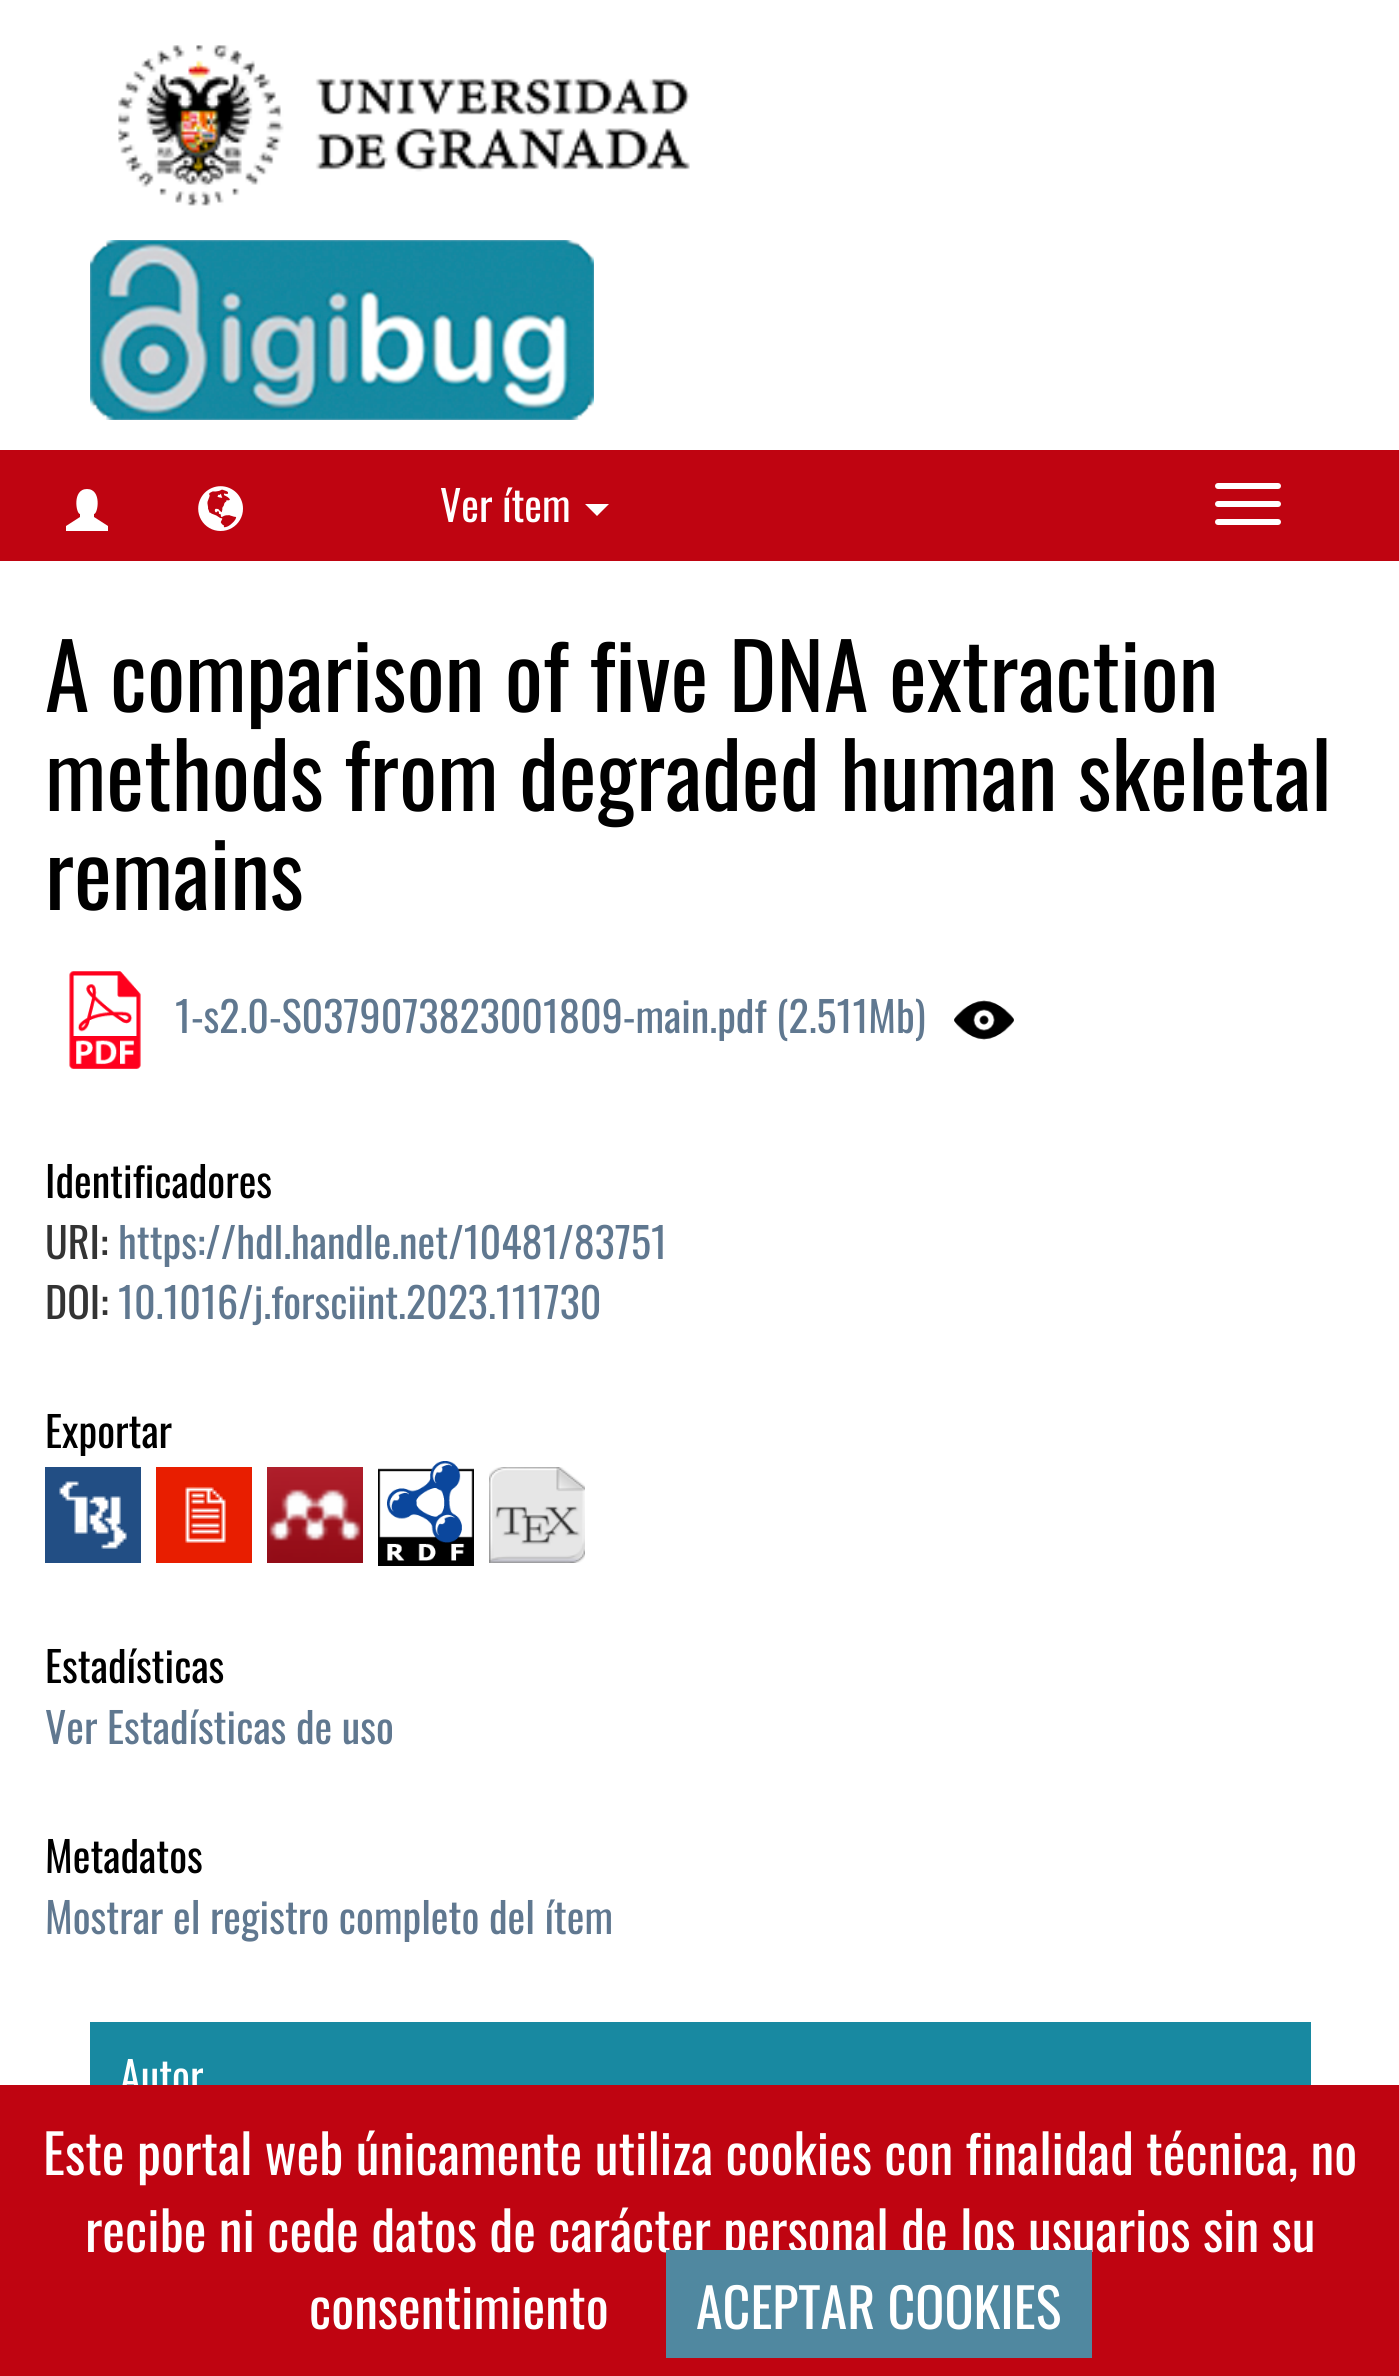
import math
import cairo

surface = cairo.ImageSurface(cairo.Format.RGB24, 1399, 2376)
ctx = cairo.Context(surface)
options = cairo.FontOptions()
options.set_hint_metrics(cairo.HintMetrics.OFF)
options.set_hint_style(cairo.HintStyle.NONE)
ctx.set_font_options(options)
ctx.set_miter_limit(4)


def ink(r, g, b):
    ctx.set_source_rgb(r / 255, g / 255, b / 255)


def write(x, y, s, family, size, color, bold=False, italic=False):
    ctx.select_font_face(family, cairo.FontSlant.ITALIC if italic else cairo.FontSlant.NORMAL, cairo.FontWeight.BOLD if bold else cairo.FontWeight.NORMAL)
    ctx.set_font_size(size)
    ink(*color)
    ctx.move_to(x, y)
    ctx.show_text(s)


def block(x, y, w, h, *color):
    ink(*color)
    ctx.rectangle(x, y, w, h)
    ctx.fill()


def round_path(x, y, w, h, r):
    ctx.new_sub_path()
    for i, (u, v) in enumerate([(x + w - r, y + h - r), (x + r, y + h - r), (x + r, y + r), (x + w - r, y + r)]):
        ctx.arc(u, v, r, i * math.pi / 2, (i + 1) * math.pi / 2)
    ctx.close_path()


def paste(path, x, y, w, h):
    ctx.save()
    ctx.set_source_surface(cairo.ImageSurface.create_from_png(path), x, y)
    ctx.rectangle(x, y, w, h)
    ctx.fill()
    ctx.restore()


s1 = dict(family="Oswald", size=42, color=(255, 255, 255))
s2 = dict(family="Oswald", size=90, color=(0, 0, 0))
s3 = dict(family="Oswald", size=42, color=(96, 120, 144))
s4 = dict(family="Oswald", size=42, color=(0, 0, 0))
s5 = dict(family="Oswald", size=42, color=(51, 51, 51))
s6 = dict(family="Oswald", size=54, color=(255, 255, 255))

ink(255, 255, 255)
ctx.paint()
paste("pic1.png", 118, 45, 572, 161)
paste("pic2.png", 90, 240, 504, 180)
block(0, 450, 1399, 111, 191, 4, 17)
ink(255, 255, 255)
ctx.new_path()
ctx.move_to(66, 531)
ctx.line_to(66, 526)
ctx.line_to(80, 517)
ctx.line_to(80, 514)
ctx.curve_to(76, 514, 72, 489, 87, 489)
ctx.curve_to(102, 489, 98, 514, 94, 514)
ctx.line_to(94, 517)
ctx.line_to(108, 526)
ctx.line_to(108, 531)
ctx.close_path()
ctx.fill()
paste("pic3.png", 198, 486, 45, 45)
write(440, 522, "Ver ítem", **s1)
ctx.new_path()
ctx.move_to(585, 504)
ctx.line_to(609, 504)
ctx.line_to(597, 516)
ctx.close_path()
ctx.fill()
round_path(1215, 483, 66, 6, 3)
ctx.fill()
round_path(1215, 501, 66, 6, 3)
ctx.fill()
round_path(1215, 519, 66, 6, 3)
ctx.fill()
write(45, 712, "A comparison of five DNA extraction", **s2)
write(45, 811, "methods from degraded human skeletal", **s2)
write(45, 910, "remains", **s2)
paste("pic4.png", 69, 971, 72, 98)
write(175, 1033, "1-s2.0-S0379073823001809-main.pdf (2.511Mb)", **s3)
paste("pic5.png", 954, 1000, 60, 40)
write(45, 1198, "Identificadores", **s4)
write(45, 1259, "URI:", **s5)
write(118, 1259, "https://hdl.handle.net/10481/83751", **s3)
write(45, 1319, "DOI:", **s5)
write(118, 1319, "10.1016/j.forsciint.2023.111730", **s3)
write(45, 1448, "Exportar", **s4)
paste("pic6.png", 45, 1467, 96, 96)
paste("pic7.png", 156, 1467, 96, 96)
paste("pic8.png", 267, 1467, 96, 96)
paste("pic9.png", 378, 1461, 96, 105)
paste("pic10.png", 489, 1467, 96, 96)
write(45, 1683, "Estadísticas", **s4)
write(45, 1744, "Ver Estadísticas de uso", **s3)
write(45, 1873, "Metadatos", **s4)
write(45, 1934, "Mostrar el registro completo del ítem", **s3)
block(90, 2022, 1221, 63, 24, 137, 161)
write(120, 2093, "Autor", **s1)
block(0, 2085, 1399, 291, 191, 4, 17)
write(43, 2175, "Este portal web únicamente utiliza cookies con finalidad técnica, no", **s6)
write(85, 2252, "recibe ni cede datos de carácter personal de los usuarios sin su", **s6)
write(309, 2329, "consentimiento", **s6)
block(666, 2250, 426, 108, 80, 136, 160)
write(696, 2329, "ACEPTAR COOKIES", **s6)
surface.write_to_png("screenshot.png")
